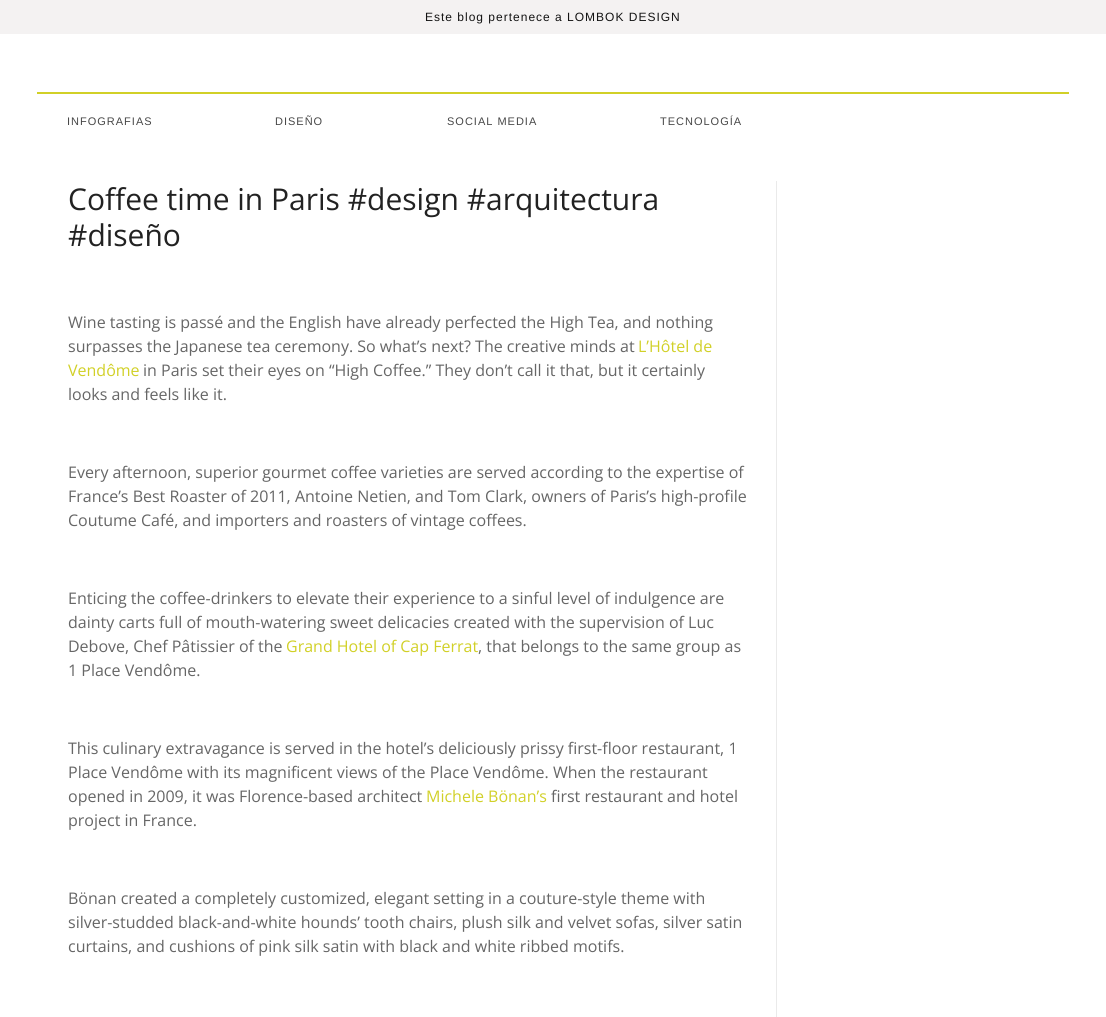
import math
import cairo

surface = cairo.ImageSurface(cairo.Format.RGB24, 1106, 1017)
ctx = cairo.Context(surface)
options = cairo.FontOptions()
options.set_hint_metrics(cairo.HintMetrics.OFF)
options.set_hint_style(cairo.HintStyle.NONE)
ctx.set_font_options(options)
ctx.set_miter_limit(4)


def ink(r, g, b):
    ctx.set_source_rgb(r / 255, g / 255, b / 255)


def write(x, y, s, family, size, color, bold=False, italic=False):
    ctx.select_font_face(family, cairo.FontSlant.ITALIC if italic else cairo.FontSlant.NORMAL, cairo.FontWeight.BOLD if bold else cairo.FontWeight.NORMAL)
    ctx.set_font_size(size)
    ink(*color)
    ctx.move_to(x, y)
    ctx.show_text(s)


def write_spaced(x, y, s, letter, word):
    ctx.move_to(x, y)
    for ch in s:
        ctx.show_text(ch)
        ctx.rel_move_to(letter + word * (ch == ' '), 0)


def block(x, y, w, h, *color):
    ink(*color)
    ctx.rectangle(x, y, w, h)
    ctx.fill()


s1 = dict(family="Open Sans", size=30, color=(34, 34, 34))
s2 = dict(family="Open Sans", size=16, color=(102, 102, 102))
s3 = dict(family="Open Sans", size=16, color=(209, 208, 39))

ink(255, 255, 255)
ctx.paint()
block(0, 0, 1106, 34, 244, 242, 242)
ctx.select_font_face("Liberation Sans")
ctx.set_font_size(12)
ink(19, 19, 19)
write_spaced(425, 21, "Este blog pertenece a LOMBOK DESIGN", 1, 0)
block(37, 92, 1032, 2, 209, 208, 39)
ctx.set_font_size(11)
ink(71, 71, 71)
write_spaced(67, 125, "INFOGRAFIAS", 1, 0)
write_spaced(275, 125, "DISEÑO", 1, 0)
write_spaced(447, 125, "SOCIAL MEDIA", 1, 0)
write_spaced(660, 125, "TECNOLOGÍA", 1, 0)
block(776, 181, 1, 836, 234, 234, 234)
write(68, 210, "Coffee time in Paris #design #arquitectura", **s1)
write(68, 246, "#diseño", **s1)
write(68, 328, "Wine tasting is passé and the English have already perfected the High Tea, and nothing", **s2)
write(68, 352, "surpasses the Japanese tea ceremony. So what’s next? The creative minds at", **s2)
write(638, 352, "L’Hôtel de", **s3)
write(68, 376, "Vendôme", **s3)
write(143, 376, "in Paris set their eyes on “High Coffee.” They don’t call it that, but it certainly", **s2)
write(68, 400, "looks and feels like it.", **s2)
write(68, 478, "Every afternoon, superior gourmet coffee varieties are served according to the expertise of", **s2)
write(68, 502, "France’s Best Roaster of 2011, Antoine Netien, and Tom Clark, owners of Paris’s high-profile", **s2)
write(68, 526, "Coutume Café, and importers and roasters of vintage coffees.", **s2)
write(68, 604, "Enticing the coffee-drinkers to elevate their experience to a sinful level of indulgence are", **s2)
write(68, 628, "dainty carts full of mouth-watering sweet delicacies created with the supervision of Luc", **s2)
write(68, 652, "Debove, Chef Pâtissier of the", **s2)
write(286, 652, "Grand Hotel of Cap Ferrat", **s3)
write(478, 652, ", that belongs to the same group as", **s2)
write(68, 676, "1 Place Vendôme.", **s2)
write(68, 754, "This culinary extravagance is served in the hotel’s deliciously prissy first-floor restaurant, 1", **s2)
write(68, 778, "Place Vendôme with its magnificent views of the Place Vendôme. When the restaurant", **s2)
write(68, 802, "opened in 2009, it was Florence-based architect", **s2)
write(426, 802, "Michele Bönan’s", **s3)
write(551, 802, "first restaurant and hotel", **s2)
write(68, 826, "project in France.", **s2)
write(68, 904, "Bönan created a completely customized, elegant setting in a couture-style theme with", **s2)
write(68, 928, "silver-studded black-and-white hounds’ tooth chairs, plush silk and velvet sofas, silver satin", **s2)
write(68, 952, "curtains, and cushions of pink silk satin with black and white ribbed motifs.", **s2)
surface.write_to_png("screenshot.png")
